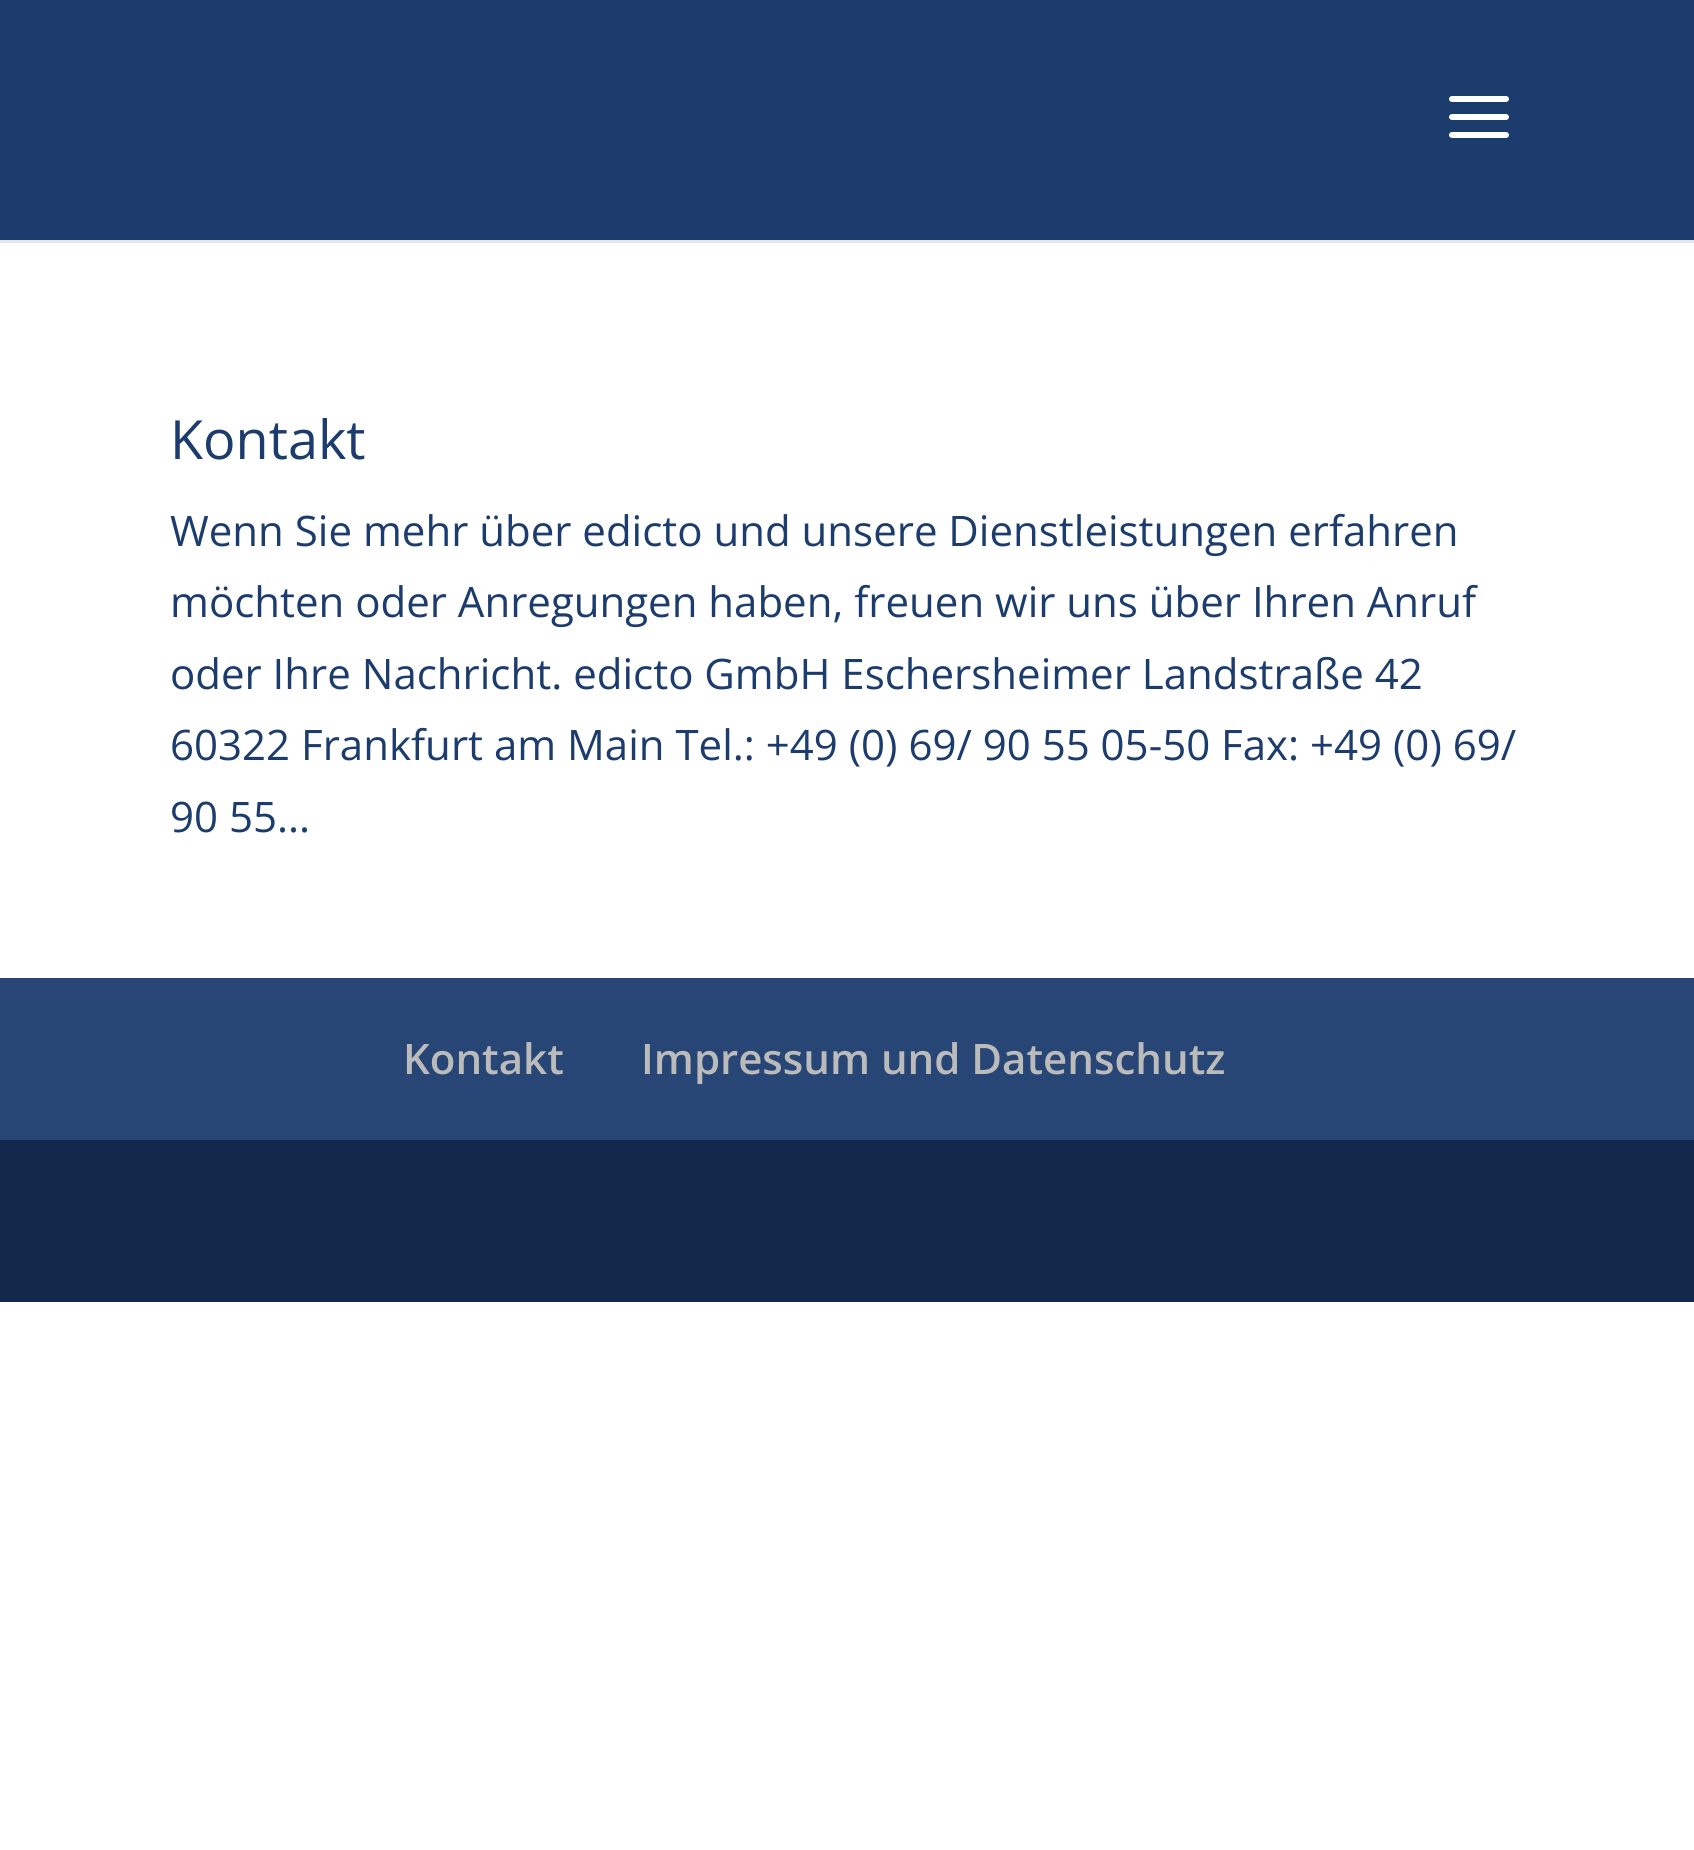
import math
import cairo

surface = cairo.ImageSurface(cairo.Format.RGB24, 1694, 1850)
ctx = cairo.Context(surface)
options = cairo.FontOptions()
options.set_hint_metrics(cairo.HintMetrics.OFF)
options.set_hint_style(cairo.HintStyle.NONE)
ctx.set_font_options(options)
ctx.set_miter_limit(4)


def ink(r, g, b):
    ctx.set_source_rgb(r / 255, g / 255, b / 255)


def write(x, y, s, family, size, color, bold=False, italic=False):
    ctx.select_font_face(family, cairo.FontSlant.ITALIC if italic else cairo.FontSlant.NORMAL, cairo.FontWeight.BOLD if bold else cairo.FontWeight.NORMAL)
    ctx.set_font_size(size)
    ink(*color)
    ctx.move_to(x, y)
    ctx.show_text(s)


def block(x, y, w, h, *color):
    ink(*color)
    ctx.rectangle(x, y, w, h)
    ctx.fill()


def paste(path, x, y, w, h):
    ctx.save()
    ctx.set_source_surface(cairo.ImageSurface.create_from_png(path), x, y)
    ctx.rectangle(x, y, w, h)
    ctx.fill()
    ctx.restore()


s1 = dict(family="Open Sans", size=54, color=(28, 60, 110))
s2 = dict(family="Open Sans", size=42, color=(28, 60, 110))
s3 = dict(family="Open Sans SemiBold", size=42, color=(187, 187, 187))

ink(255, 255, 255)
ctx.paint()
block(0, 240, 1694, 3, 230, 230, 230)
block(0, 0, 1694, 240, 28, 60, 110)
paste("pic1.png", 1449, 96, 60, 42)
write(170, 459, "Kontakt", **s1)
write(170, 546, "Wenn Sie mehr über edicto und unsere Dienstleistungen erfahren", **s2)
write(170, 617, "möchten oder Anregungen haben, freuen wir uns über Ihren Anruf", **s2)
write(170, 689, "oder Ihre Nachricht. edicto GmbH Eschersheimer Landstraße 42", **s2)
write(170, 760, "60322 Frankfurt am Main Tel.: +49 (0) 69/ 90 55 05-50 Fax: +49 (0) 69/", **s2)
write(170, 832, "90 55...", **s2)
block(0, 978, 1694, 162, 39, 70, 117)
write(403, 1074, "Kontakt", **s3)
write(641, 1074, "Impressum und Datenschutz", **s3)
block(0, 1140, 1694, 162, 19, 41, 75)
surface.write_to_png("screenshot.png")
